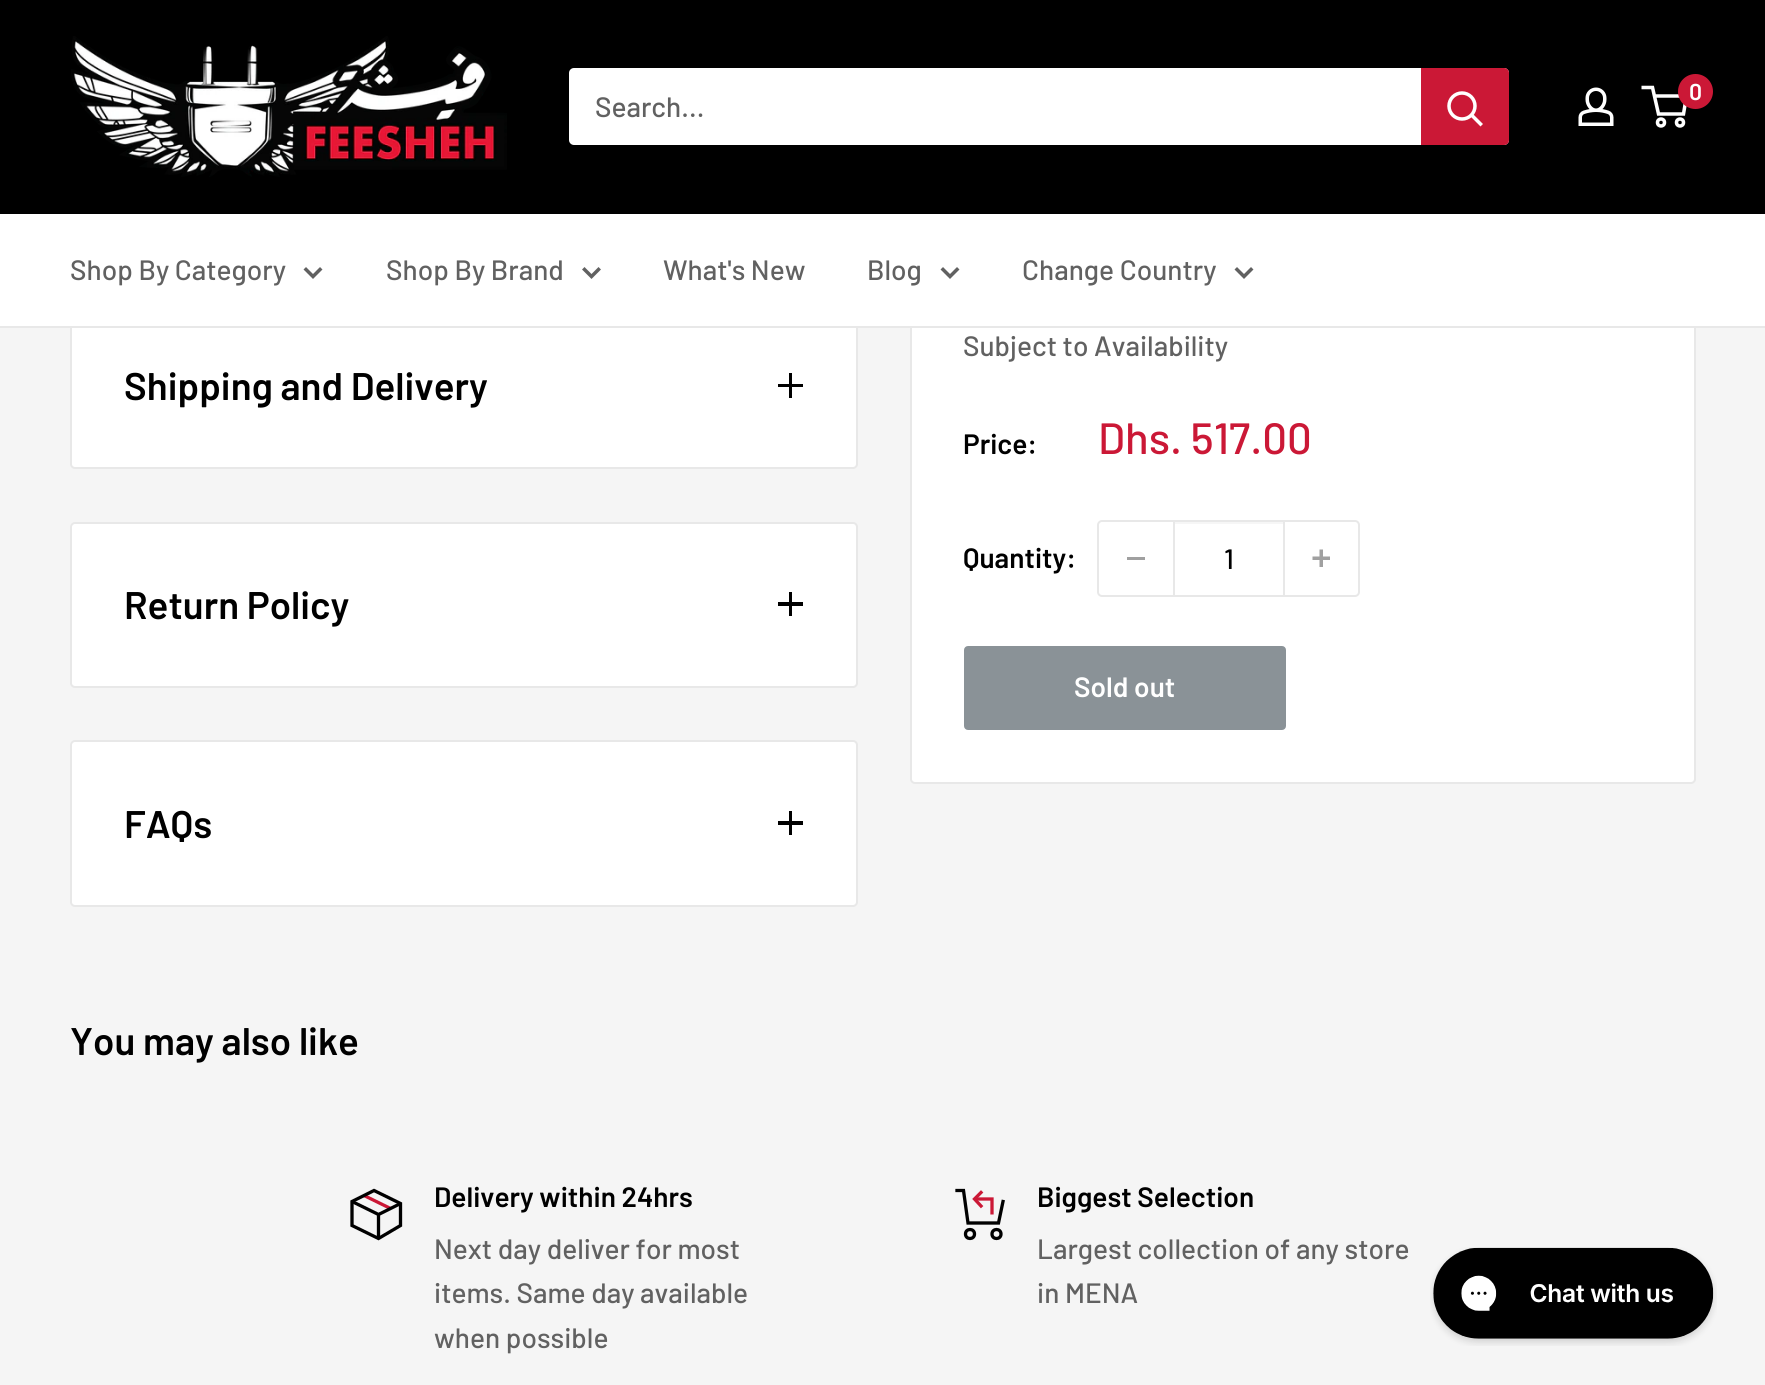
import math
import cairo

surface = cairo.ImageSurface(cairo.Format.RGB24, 1765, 1385)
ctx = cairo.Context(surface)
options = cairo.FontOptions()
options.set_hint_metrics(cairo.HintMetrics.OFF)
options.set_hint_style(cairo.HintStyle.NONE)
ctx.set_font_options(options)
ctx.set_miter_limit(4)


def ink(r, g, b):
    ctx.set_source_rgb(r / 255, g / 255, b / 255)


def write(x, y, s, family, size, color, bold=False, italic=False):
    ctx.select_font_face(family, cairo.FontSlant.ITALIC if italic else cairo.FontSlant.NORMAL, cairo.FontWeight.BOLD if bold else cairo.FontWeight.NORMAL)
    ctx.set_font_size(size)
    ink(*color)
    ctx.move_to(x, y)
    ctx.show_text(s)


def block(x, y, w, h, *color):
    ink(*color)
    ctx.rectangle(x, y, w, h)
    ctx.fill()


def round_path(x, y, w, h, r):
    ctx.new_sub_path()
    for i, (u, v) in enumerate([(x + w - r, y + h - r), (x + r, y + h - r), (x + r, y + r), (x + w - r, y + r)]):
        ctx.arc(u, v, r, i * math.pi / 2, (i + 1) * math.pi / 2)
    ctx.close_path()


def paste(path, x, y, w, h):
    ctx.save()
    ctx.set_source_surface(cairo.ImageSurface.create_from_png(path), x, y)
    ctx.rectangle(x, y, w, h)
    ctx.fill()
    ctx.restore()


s1 = dict(family="Barlow SemiBold", size=23, color=(255, 255, 255))
s2 = dict(family="Barlow Medium", size=28, color=(97, 97, 97))
s3 = dict(family="Barlow SemiBold", size=38.5, color=(0, 0, 0))
s4 = dict(family="Barlow SemiBold", size=28, color=(0, 0, 0))
s5 = dict(family="Barlow Medium", size=43.75, color=(203, 24, 54))
s6 = dict(family="Barlow Medium", size=28, color=(0, 0, 0))
s7 = dict(family="Barlow SemiBold", size=28, color=(255, 255, 255))

ink(245, 245, 245)
ctx.paint()
ink(255, 255, 255)
round_path(911, 1, 784, 782, 4)
ctx.fill_preserve()
ink(232, 232, 232)
ctx.stroke()
block(0, 0, 1765, 214, 0, 0, 0)
paste("pic1.png", 71, 36, 436, 141)
paste("pic2.png", 1578, 87, 36, 39)
ctx.arc(1661, 122.5, 3.5, 0, 2 * math.pi)
ink(255, 255, 255)
ctx.set_line_width(3.5)
ctx.stroke()
ctx.arc(1680, 122.5, 3.5, 0, 2 * math.pi)
ctx.stroke()
ctx.new_path()
ctx.move_to(1654.5, 96)
ctx.line_to(1686.5, 96)
ctx.line_to(1683.5, 114)
ctx.line_to(1658.5, 114)
ctx.line_to(1652.5, 87.5)
ctx.line_to(1641.5, 87.5)
ctx.stroke()
ink(203, 24, 54)
ctx.arc(1695.5, 91.5, 17.5, 0, 2 * math.pi)
ctx.fill()
write(1689, 100, "0", **s1)
round_path(569, 68, 940, 77, 5)
ctx.fill()
write(595, 117, "Search...", **s2)
ink(203, 24, 54)
ctx.new_path()
ctx.move_to(1421, 68)
ctx.line_to(1504, 68)
ctx.curve_to(1507, 68, 1509, 70, 1509, 73)
ctx.line_to(1509, 140)
ctx.curve_to(1509, 143, 1507, 145, 1504, 145)
ctx.line_to(1421, 145)
ctx.close_path()
ctx.fill()
ctx.new_path()
ctx.move_to(1480.5, 124)
ctx.line_to(1472, 115.5)
ink(255, 255, 255)
ctx.set_line_cap(cairo.LineCap.SQUARE)
ctx.stroke()
ctx.arc(1462, 106, 13, 0, 2 * math.pi)
ctx.set_line_cap(cairo.LineCap.BUTT)
ctx.stroke()
round_path(71, 304, 786, 164, 4)
ctx.fill_preserve()
ink(232, 232, 232)
ctx.set_line_width(2)
ctx.stroke()
block(0, 214, 1765, 112, 255, 255, 255)
block(0, 326, 1765, 2, 232, 232, 232)
write(70, 280, "Shop By Category", **s2)
ctx.new_path()
ctx.move_to(320, 269.5)
ctx.line_to(313, 276.5)
ctx.line_to(306, 269.5)
ctx.set_line_width(3.5)
ctx.set_line_cap(cairo.LineCap.SQUARE)
ctx.stroke()
write(386, 280, "Shop By Brand", **s2)
ctx.new_path()
ctx.move_to(598.5, 269.5)
ctx.line_to(591.5, 276.5)
ctx.line_to(584.5, 269.5)
ctx.stroke()
write(663, 280, "What's New", **s2)
write(867, 280, "Blog", **s2)
ctx.new_path()
ctx.move_to(957, 269.5)
ctx.line_to(950, 276.5)
ctx.line_to(943, 269.5)
ctx.stroke()
write(1022, 280, "Change Country", **s2)
ctx.new_path()
ctx.move_to(1251, 269.5)
ctx.line_to(1244, 276.5)
ctx.line_to(1237, 269.5)
ctx.stroke()
write(124, 400, "Shipping and Delivery", **s3)
block(789, 373, 3, 25, 0, 0, 0)
block(778, 384, 25, 3, 0, 0, 0)
write(963, 356, "Subject to Availability", **s2)
write(963, 454, "Price:", **s4)
write(1098, 454, "Dhs. 517.00", **s5)
write(963, 568, "Quantity:", **s4)
round_path(1098, 521, 261, 75, 4)
ink(232, 232, 232)
ctx.set_line_width(2)
ctx.set_line_cap(cairo.LineCap.BUTT)
ctx.stroke()
block(1127, 557, 18, 3, 160, 160, 160)
block(1174, 522, 109, 2, 246, 246, 246)
block(1283, 522, 2, 73, 232, 232, 232)
block(1173, 522, 2, 73, 232, 232, 232)
write(1224, 569, "1", **s6)
paste("pic3.png", 1312, 549, 18, 18)
ink(138, 146, 151)
round_path(965, 647, 320, 82, 3)
ctx.fill_preserve()
ctx.stroke()
write(1074, 697, "Sold out", **s7)
round_path(71, 523, 786, 164, 4)
ctx.fill_preserve()
ink(232, 232, 232)
ctx.stroke()
write(124, 619, "Return Policy", **s3)
block(789, 592, 3, 24, 0, 0, 0)
block(778, 602, 25, 4, 0, 0, 0)
ink(255, 255, 255)
round_path(71, 741, 786, 165, 4)
ctx.fill_preserve()
ink(232, 232, 232)
ctx.stroke()
write(124, 838, "FAQs", **s3)
block(789, 811, 3, 24, 0, 0, 0)
block(778, 821, 25, 4, 0, 0, 0)
write(70, 1055, "You may also like", **s3)
ctx.new_path()
ctx.move_to(364, 1195.5)
ctx.line_to(390.5, 1208.5)
ink(203, 24, 54)
ctx.set_line_width(3.3)
ctx.stroke()
ctx.new_path()
ctx.move_to(400.5, 1203.5)
ctx.line_to(378.5, 1214.5)
ctx.line_to(352, 1201.5)
ctx.move_to(378.5, 1214.5)
ctx.line_to(378.5, 1238.5)
ink(0, 0, 0)
ctx.stroke()
ctx.new_path()
ctx.move_to(400.5, 1203.5)
ctx.line_to(400.5, 1225.5)
ctx.line_to(378.5, 1238.5)
ctx.line_to(352, 1225.5)
ctx.line_to(352, 1201.5)
ctx.line_to(374, 1190.5)
ctx.close_path()
ctx.set_line_cap(cairo.LineCap.SQUARE)
ctx.stroke()
write(434, 1207, "Delivery within 24hrs", **s4)
write(434, 1259, "Next day deliver for most", **s2)
write(434, 1303, "items. Same day available", **s2)
write(434, 1348, "when possible", **s2)
ctx.new_path()
ctx.move_to(974.5, 1199)
ctx.line_to(992, 1199)
ctx.line_to(992, 1214.5)
ink(203, 24, 54)
ctx.set_line_cap(cairo.LineCap.BUTT)
ctx.stroke()
ctx.new_path()
ctx.move_to(981, 1206)
ctx.line_to(974.5, 1199)
ctx.line_to(981, 1192.5)
ctx.set_line_cap(cairo.LineCap.SQUARE)
ctx.stroke()
ctx.new_path()
ctx.move_to(1003, 1201.5)
ctx.line_to(998.5, 1223)
ctx.line_to(968, 1223)
ctx.line_to(963.5, 1190.5)
ctx.line_to(957, 1190.5)
ink(0, 0, 0)
ctx.stroke()
ctx.arc(970, 1234, 4.5, 0, 2 * math.pi)
ctx.set_line_cap(cairo.LineCap.BUTT)
ctx.stroke()
ctx.arc(996.5, 1234, 4.5, 0, 2 * math.pi)
ctx.stroke()
write(1037, 1207, "Biggest Selection", **s4)
write(1037, 1259, "Largest collection of any store", **s2)
write(1037, 1303, "in MENA", **s2)
paste("pic4.png", 1430, 1247, 287, 99)
surface.write_to_png("screenshot.png")
